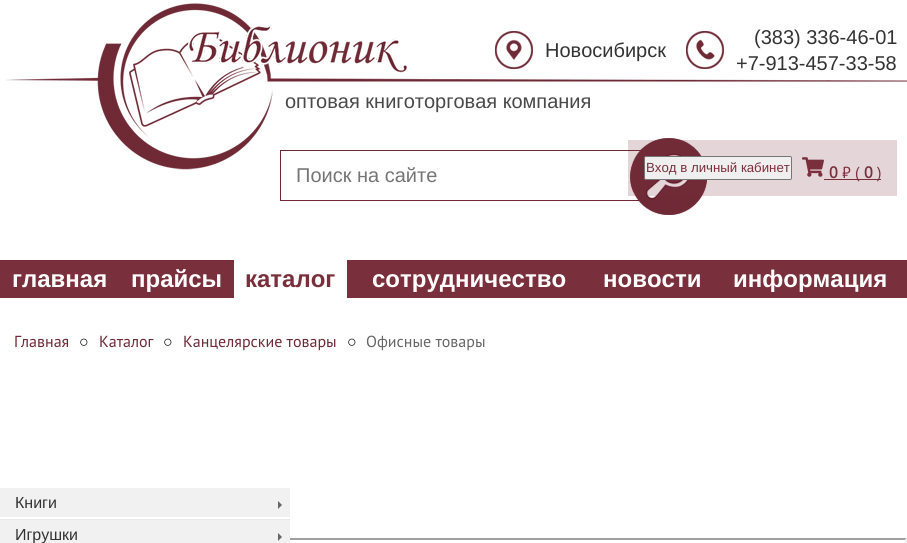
import math
import cairo

surface = cairo.ImageSurface(cairo.Format.RGB24, 907, 543)
ctx = cairo.Context(surface)
options = cairo.FontOptions()
options.set_hint_metrics(cairo.HintMetrics.OFF)
options.set_hint_style(cairo.HintStyle.NONE)
ctx.set_font_options(options)
ctx.set_miter_limit(4)


def ink(r, g, b):
    ctx.set_source_rgb(r / 255, g / 255, b / 255)


def write(x, y, s, family, size, color, bold=False, italic=False):
    ctx.select_font_face(family, cairo.FontSlant.ITALIC if italic else cairo.FontSlant.NORMAL, cairo.FontWeight.BOLD if bold else cairo.FontWeight.NORMAL)
    ctx.set_font_size(size)
    ink(*color)
    ctx.move_to(x, y)
    ctx.show_text(s)


def block(x, y, w, h, *color):
    ink(*color)
    ctx.rectangle(x, y, w, h)
    ctx.fill()


def round_path(x, y, w, h, r):
    ctx.new_sub_path()
    for i, (u, v) in enumerate([(x + w - r, y + h - r), (x + r, y + h - r), (x + r, y + r), (x + w - r, y + r)]):
        ctx.arc(u, v, r, i * math.pi / 2, (i + 1) * math.pi / 2)
    ctx.close_path()


def paste(path, x, y, w, h):
    ctx.save()
    ctx.set_source_surface(cairo.ImageSurface.create_from_png(path), x, y)
    ctx.rectangle(x, y, w, h)
    ctx.fill()
    ctx.restore()


s1 = dict(family="Liberation Sans", size=20, color=(51, 51, 51))
s2 = dict(family="Liberation Sans", size=20, color=(74, 72, 74))
s3 = dict(family="Liberation Sans", size=20, color=(117, 117, 117))
s4 = dict(family="Liberation Sans", size=13.25, color=(122, 47, 60))
s5 = dict(family="PT Sans", size=16, color=(122, 47, 60), bold=True)
s6 = dict(family="PT Sans", size=16, color=(122, 47, 60))
s7 = dict(family="Liberation Sans", size=24, color=(255, 255, 255), bold=True)
s8 = dict(family="Liberation Sans", size=24, color=(122, 47, 60), bold=True)
s9 = dict(family="PT Sans", size=16, color=(111, 42, 54))
s10 = dict(family="Liberation Sans", size=16, color=(0, 0, 0))
s11 = dict(family="PT Sans", size=16, color=(102, 102, 102))
s12 = dict(family="Liberation Sans", size=16, color=(51, 51, 51))

ink(255, 255, 255)
ctx.paint()
paste("pic1.png", 5, 3, 902, 167)
paste("pic5.png", 129, 39, 132, 88)
paste("pic2.png", 188, 24, 219, 49)
paste("pic3.png", 495, 31, 38, 38)
write(545, 57, "Новосибирск", **s1)
paste("pic4.png", 686, 31, 38, 38)
write(754, 44, "(383) 336-46-01", **s1)
write(736, 70, "+7-913-457-33-58", **s1)
write(285, 108, "оптовая книготорговая компания", **s2)
ctx.rectangle(280.5, 150.5, 362, 50)
ink(111, 42, 54)
ctx.set_line_width(1)
ctx.stroke()
write(296, 182, "Поиск на сайте", **s3)
paste("pic6.png", 630, 138, 77, 77)
paste("pic7.png", 630, 138, 77, 77)
ctx.set_source_rgba(0.478, 0.184, 0.235, 0.2)
ctx.rectangle(628, 140, 269, 56)
ctx.fill()
ink(239, 239, 239)
round_path(644.5, 156.5, 147, 23, 1.5)
ctx.fill_preserve()
ink(118, 118, 118)
ctx.stroke()
write(646, 172, "Вход в личный кабинет", **s4)
paste("pic8.png", 802, 157, 22, 20)
write(829, 178, "0", **s5)
block(824, 179, 57, 1, 122, 47, 60)
write(842, 178, "₽ (", **s6)
write(864, 178, "0", **s5)
write(877, 178, ")", **s6)
block(0, 260, 907, 38, 122, 47, 60)
write(12, 287, "главная", **s7)
write(131, 287, "прайсы", **s7)
block(234, 260, 113, 38, 255, 255, 255)
write(245, 287, "каталог", **s8)
write(372, 287, "сотрудничество", **s7)
write(603, 287, "новости", **s7)
write(733, 287, "информация", **s7)
write(14, 347, "Главная", **s9)
write(79, 347, "○", **s10)
write(99, 347, "Каталог", **s9)
write(163, 347, "○", **s10)
write(183, 347, "Канцелярские товары", **s9)
write(347, 347, "○", **s10)
write(366, 347, "Офисные товары", **s11)
block(0, 519, 290, 1, 232, 232, 232)
block(0, 488, 290, 29, 242, 241, 241)
write(15, 508, "Книги", **s12)
ink(102, 102, 102)
ctx.new_path()
ctx.move_to(278, 509)
ctx.line_to(278, 501)
ctx.line_to(282, 505)
ctx.close_path()
ctx.fill()
ink(159, 159, 159)
ctx.new_path()
ctx.move_to(0, 538)
ctx.line_to(907, 538)
ctx.line_to(905, 540)
ctx.line_to(2, 540)
ctx.close_path()
ctx.fill()
block(0, 520, 290, 23, 242, 241, 241)
write(15, 540, "Игрушки", **s12)
ink(102, 102, 102)
ctx.new_path()
ctx.move_to(278, 541)
ctx.line_to(278, 533)
ctx.line_to(282, 537)
ctx.close_path()
ctx.fill()
ink(239, 239, 239)
ctx.new_path()
ctx.move_to(907, 538)
ctx.line_to(907, 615)
ctx.line_to(905, 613)
ctx.line_to(905, 540)
ctx.close_path()
ctx.fill()
surface.write_to_png("screenshot.png")
